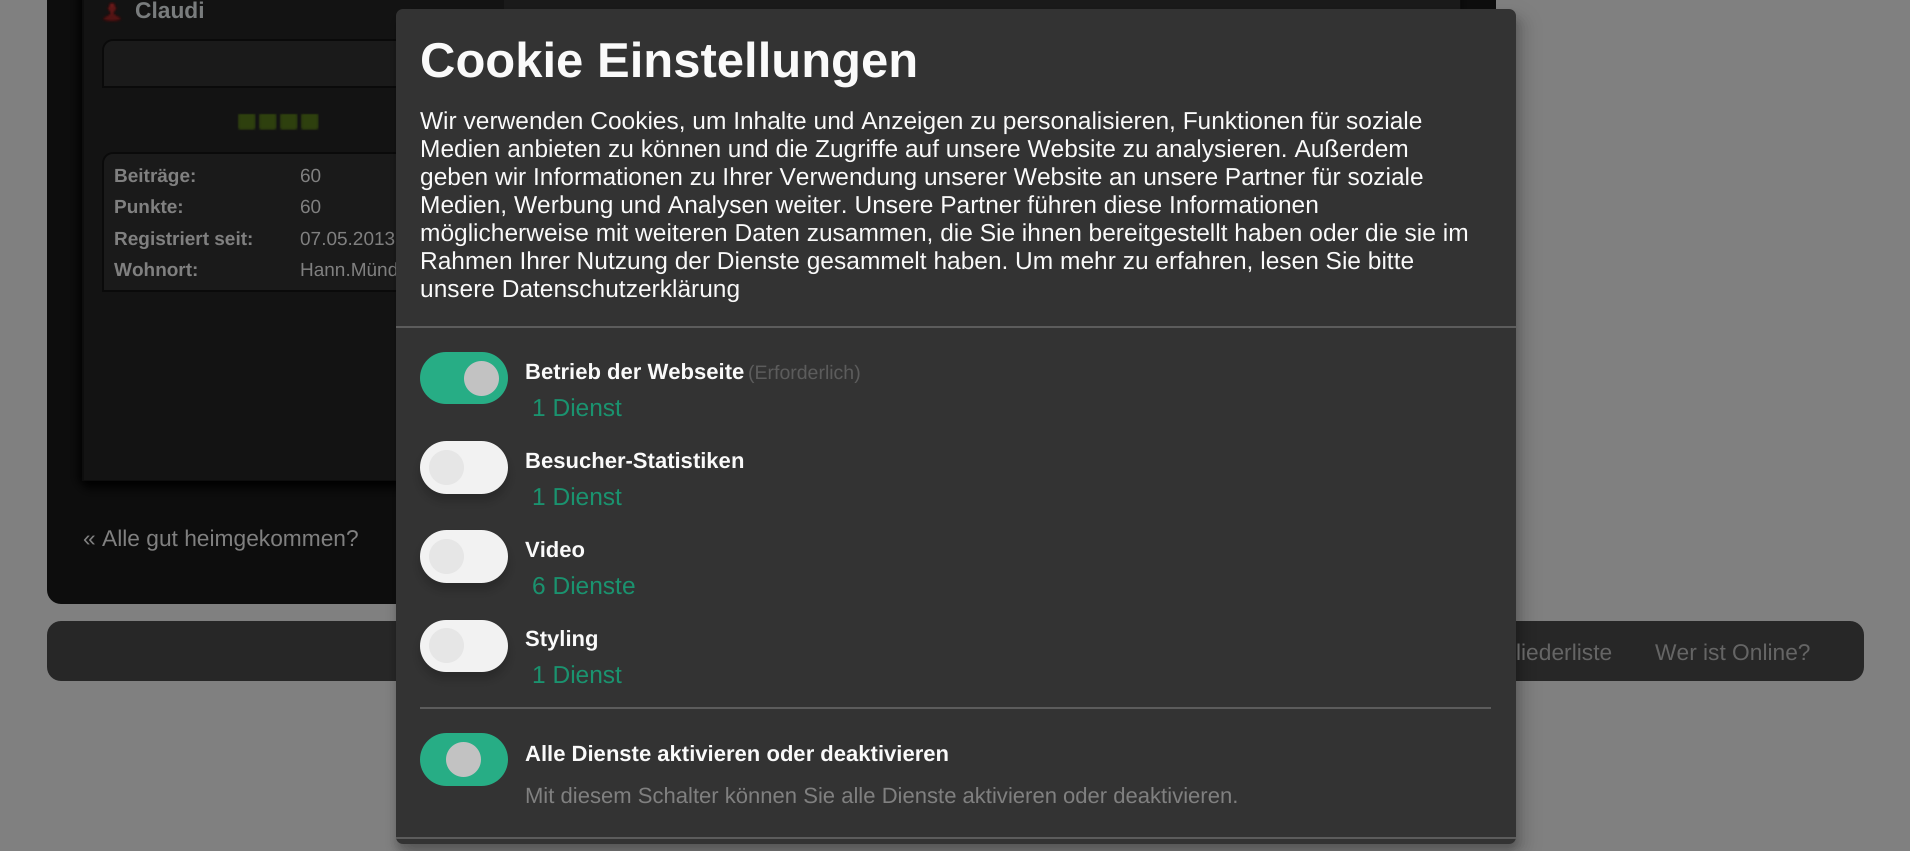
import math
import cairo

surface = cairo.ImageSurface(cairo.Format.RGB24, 1910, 851)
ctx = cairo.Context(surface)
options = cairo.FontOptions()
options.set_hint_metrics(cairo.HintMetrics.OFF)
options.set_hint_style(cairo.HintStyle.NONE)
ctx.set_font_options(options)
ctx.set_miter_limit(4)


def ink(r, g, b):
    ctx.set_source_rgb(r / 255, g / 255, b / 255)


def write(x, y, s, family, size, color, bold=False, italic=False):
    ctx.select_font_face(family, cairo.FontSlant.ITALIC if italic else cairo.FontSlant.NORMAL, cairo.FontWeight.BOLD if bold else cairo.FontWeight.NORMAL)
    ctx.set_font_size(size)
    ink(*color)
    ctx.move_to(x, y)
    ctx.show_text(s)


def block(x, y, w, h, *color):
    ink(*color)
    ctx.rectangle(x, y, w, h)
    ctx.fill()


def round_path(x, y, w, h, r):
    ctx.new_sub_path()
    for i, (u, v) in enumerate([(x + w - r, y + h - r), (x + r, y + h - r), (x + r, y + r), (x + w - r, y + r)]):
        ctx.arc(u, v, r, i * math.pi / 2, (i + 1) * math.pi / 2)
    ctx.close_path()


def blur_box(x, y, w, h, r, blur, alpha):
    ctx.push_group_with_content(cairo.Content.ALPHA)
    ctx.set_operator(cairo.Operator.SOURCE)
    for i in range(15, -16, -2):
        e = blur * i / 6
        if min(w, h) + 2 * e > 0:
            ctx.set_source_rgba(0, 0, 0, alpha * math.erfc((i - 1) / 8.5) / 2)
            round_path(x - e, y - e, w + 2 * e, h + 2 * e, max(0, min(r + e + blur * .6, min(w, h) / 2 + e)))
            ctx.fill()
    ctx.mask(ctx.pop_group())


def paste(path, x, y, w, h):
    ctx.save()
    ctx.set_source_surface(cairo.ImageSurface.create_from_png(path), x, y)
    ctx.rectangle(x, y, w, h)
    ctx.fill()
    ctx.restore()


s1 = dict(family="Liberation Sans", size=22.75, color=(121, 124, 125), bold=True)
s2 = dict(family="Liberation Sans", size=19, color=(128, 128, 128), bold=True)
s3 = dict(family="Liberation Sans", size=19, color=(128, 128, 128))
s4 = dict(family="Liberation Sans", size=22.75, color=(128, 128, 128))
s5 = dict(family="Liberation Sans", size=49, color=(250, 250, 250), bold=True)
s6 = dict(family="Liberation Sans", size=24.5, color=(250, 250, 250))
s7 = dict(family="Liberation Sans", size=22.05, color=(250, 250, 250), bold=True)
s8 = dict(family="Liberation Sans", size=19.5, color=(92, 92, 92))
s9 = dict(family="Liberation Sans", size=24.5, color=(26, 147, 111))
s10 = dict(family="Liberation Sans", size=22.05, color=(128, 128, 128))
s11 = dict(family="Liberation Sans", size=22.75, color=(101, 101, 101))

ink(128, 128, 128)
ctx.paint()
ink(13, 13, 13)
round_path(47, -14, 1449, 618, 14)
ctx.fill()
ink(0, 0, 0)
blur_box(79, -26, 1379, 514, 11, 5, 1)
ctx.rectangle(83, -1, 1377, 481)
ink(13, 13, 13)
ctx.stroke()
block(504, 0, 956, 9, 26, 26, 26)
block(84, 0, 420, 424, 19, 19, 19)
paste("pic1.png", 101, 2, 22, 21)
write(135, 18, "Claudi", **s1)
ink(26, 26, 26)
ctx.new_path()
ctx.move_to(113, 40)
ctx.line_to(476, 40)
ctx.curve_to(481.5, 40, 486, 44.5, 486, 50)
ctx.line_to(486, 87)
ctx.line_to(103, 87)
ctx.line_to(103, 50)
ctx.curve_to(103, 44.5, 107.5, 40, 113, 40)
ctx.close_path()
ctx.fill_preserve()
ink(10, 10, 10)
ctx.stroke()
paste("pic2.png", 237, 113, 82, 18)
ink(26, 26, 26)
ctx.new_path()
ctx.move_to(113, 153)
ctx.line_to(476, 153)
ctx.curve_to(481.5, 153, 486, 157.5, 486, 163)
ctx.line_to(486, 291)
ctx.line_to(103, 291)
ctx.line_to(103, 163)
ctx.curve_to(103, 157.5, 107.5, 153, 113, 153)
ctx.close_path()
ctx.fill_preserve()
ink(10, 10, 10)
ctx.stroke()
write(114, 182, "Beiträge:", **s2)
write(300, 182, "60", **s3)
write(114, 213, "Punkte:", **s2)
write(300, 213, "60", **s3)
write(114, 245, "Registriert seit:", **s2)
write(300, 245, "07.05.2013", **s3)
write(114, 276, "Wohnort:", **s2)
write(300, 276, "Hann.Münd", **s3)
block(84, 424, 312, 56, 19, 19, 19)
write(83, 546, "« Alle gut heimgekommen?", **s4)
ink(39, 39, 39)
round_path(47, 621, 1817, 60, 14)
ctx.fill()
ink(0, 0, 0)
blur_box(404, 18, 1120, 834, 7, 9, 0.19)
blur_box(396, 16, 1120, 835, 7, 5, 0.2)
ink(51, 51, 51)
round_path(396, 9, 1120, 835, 7)
ctx.fill()
block(396, 326, 1120, 2, 92, 92, 92)
write(420, 77, "Cookie Einstellungen", **s5)
write(420, 129, "Wir verwenden Cookies, um Inhalte und Anzeigen zu personalisieren, Funktionen für soziale", **s6)
write(420, 157, "Medien anbieten zu können und die Zugriffe auf unsere Website zu analysieren. Außerdem", **s6)
write(420, 185, "geben wir Informationen zu Ihrer Verwendung unserer Website an unsere Partner für soziale", **s6)
write(420, 213, "Medien, Werbung und Analysen weiter. Unsere Partner führen diese Informationen", **s6)
write(420, 241, "möglicherweise mit weiteren Daten zusammen, die Sie ihnen bereitgestellt haben oder die sie im", **s6)
write(420, 269, "Rahmen Ihrer Nutzung der Dienste gesammelt haben. Um mehr zu erfahren, lesen Sie bitte", **s6)
write(420, 297, "unsere Datenschutzerklärung", **s6)
ink(39, 173, 133)
round_path(420, 352, 88, 52, 26)
ctx.fill()
ink(194, 194, 194)
ctx.arc(481.5, 378.5, 17.5, 0, 2 * math.pi)
ctx.fill()
write(525, 379, "Betrieb der Webseite", **s7)
write(748, 379, "(Erforderlich)", **s8)
write(532, 416, "1 Dienst", **s9)
ink(0, 0, 0)
blur_box(420, 448, 88, 53, 26.5, 5, 0.2)
ink(242, 242, 242)
round_path(420, 441, 88, 53, 26.5)
ctx.fill()
ink(230, 230, 230)
ctx.arc(446.5, 467.5, 17.5, 0, 2 * math.pi)
ctx.fill()
write(525, 468, "Besucher-Statistiken", **s7)
write(532, 505, "1 Dienst", **s9)
ink(0, 0, 0)
blur_box(420, 537, 88, 53, 26.5, 5, 0.2)
ink(242, 242, 242)
round_path(420, 530, 88, 53, 26.5)
ctx.fill()
ink(230, 230, 230)
ctx.arc(446.5, 556.5, 17.5, 0, 2 * math.pi)
ctx.fill()
write(525, 557, "Video", **s7)
write(532, 594, "6 Dienste", **s9)
ink(0, 0, 0)
blur_box(420, 627, 88, 52, 26, 5, 0.2)
ink(242, 242, 242)
round_path(420, 620, 88, 52, 26)
ctx.fill()
ink(230, 230, 230)
ctx.arc(446.5, 645.5, 17.5, 0, 2 * math.pi)
ctx.fill()
write(525, 646, "Styling", **s7)
write(532, 683, "1 Dienst", **s9)
block(420, 707, 1071, 2, 92, 92, 92)
ink(39, 173, 133)
round_path(420, 733, 88, 53, 26.5)
ctx.fill()
ink(194, 194, 194)
ctx.arc(463.5, 759.5, 17.5, 0, 2 * math.pi)
ctx.fill()
write(525, 761, "Alle Dienste aktivieren oder deaktivieren", **s7)
write(525, 803, "Mit diesem Schalter können Sie alle Dienste aktivieren oder deaktivieren.", **s10)
block(396, 837, 1120, 2, 92, 92, 92)
write(1516, 660, "liederliste", **s11)
write(1655, 660, "Wer ist Online?", **s11)
surface.write_to_png("screenshot.png")
